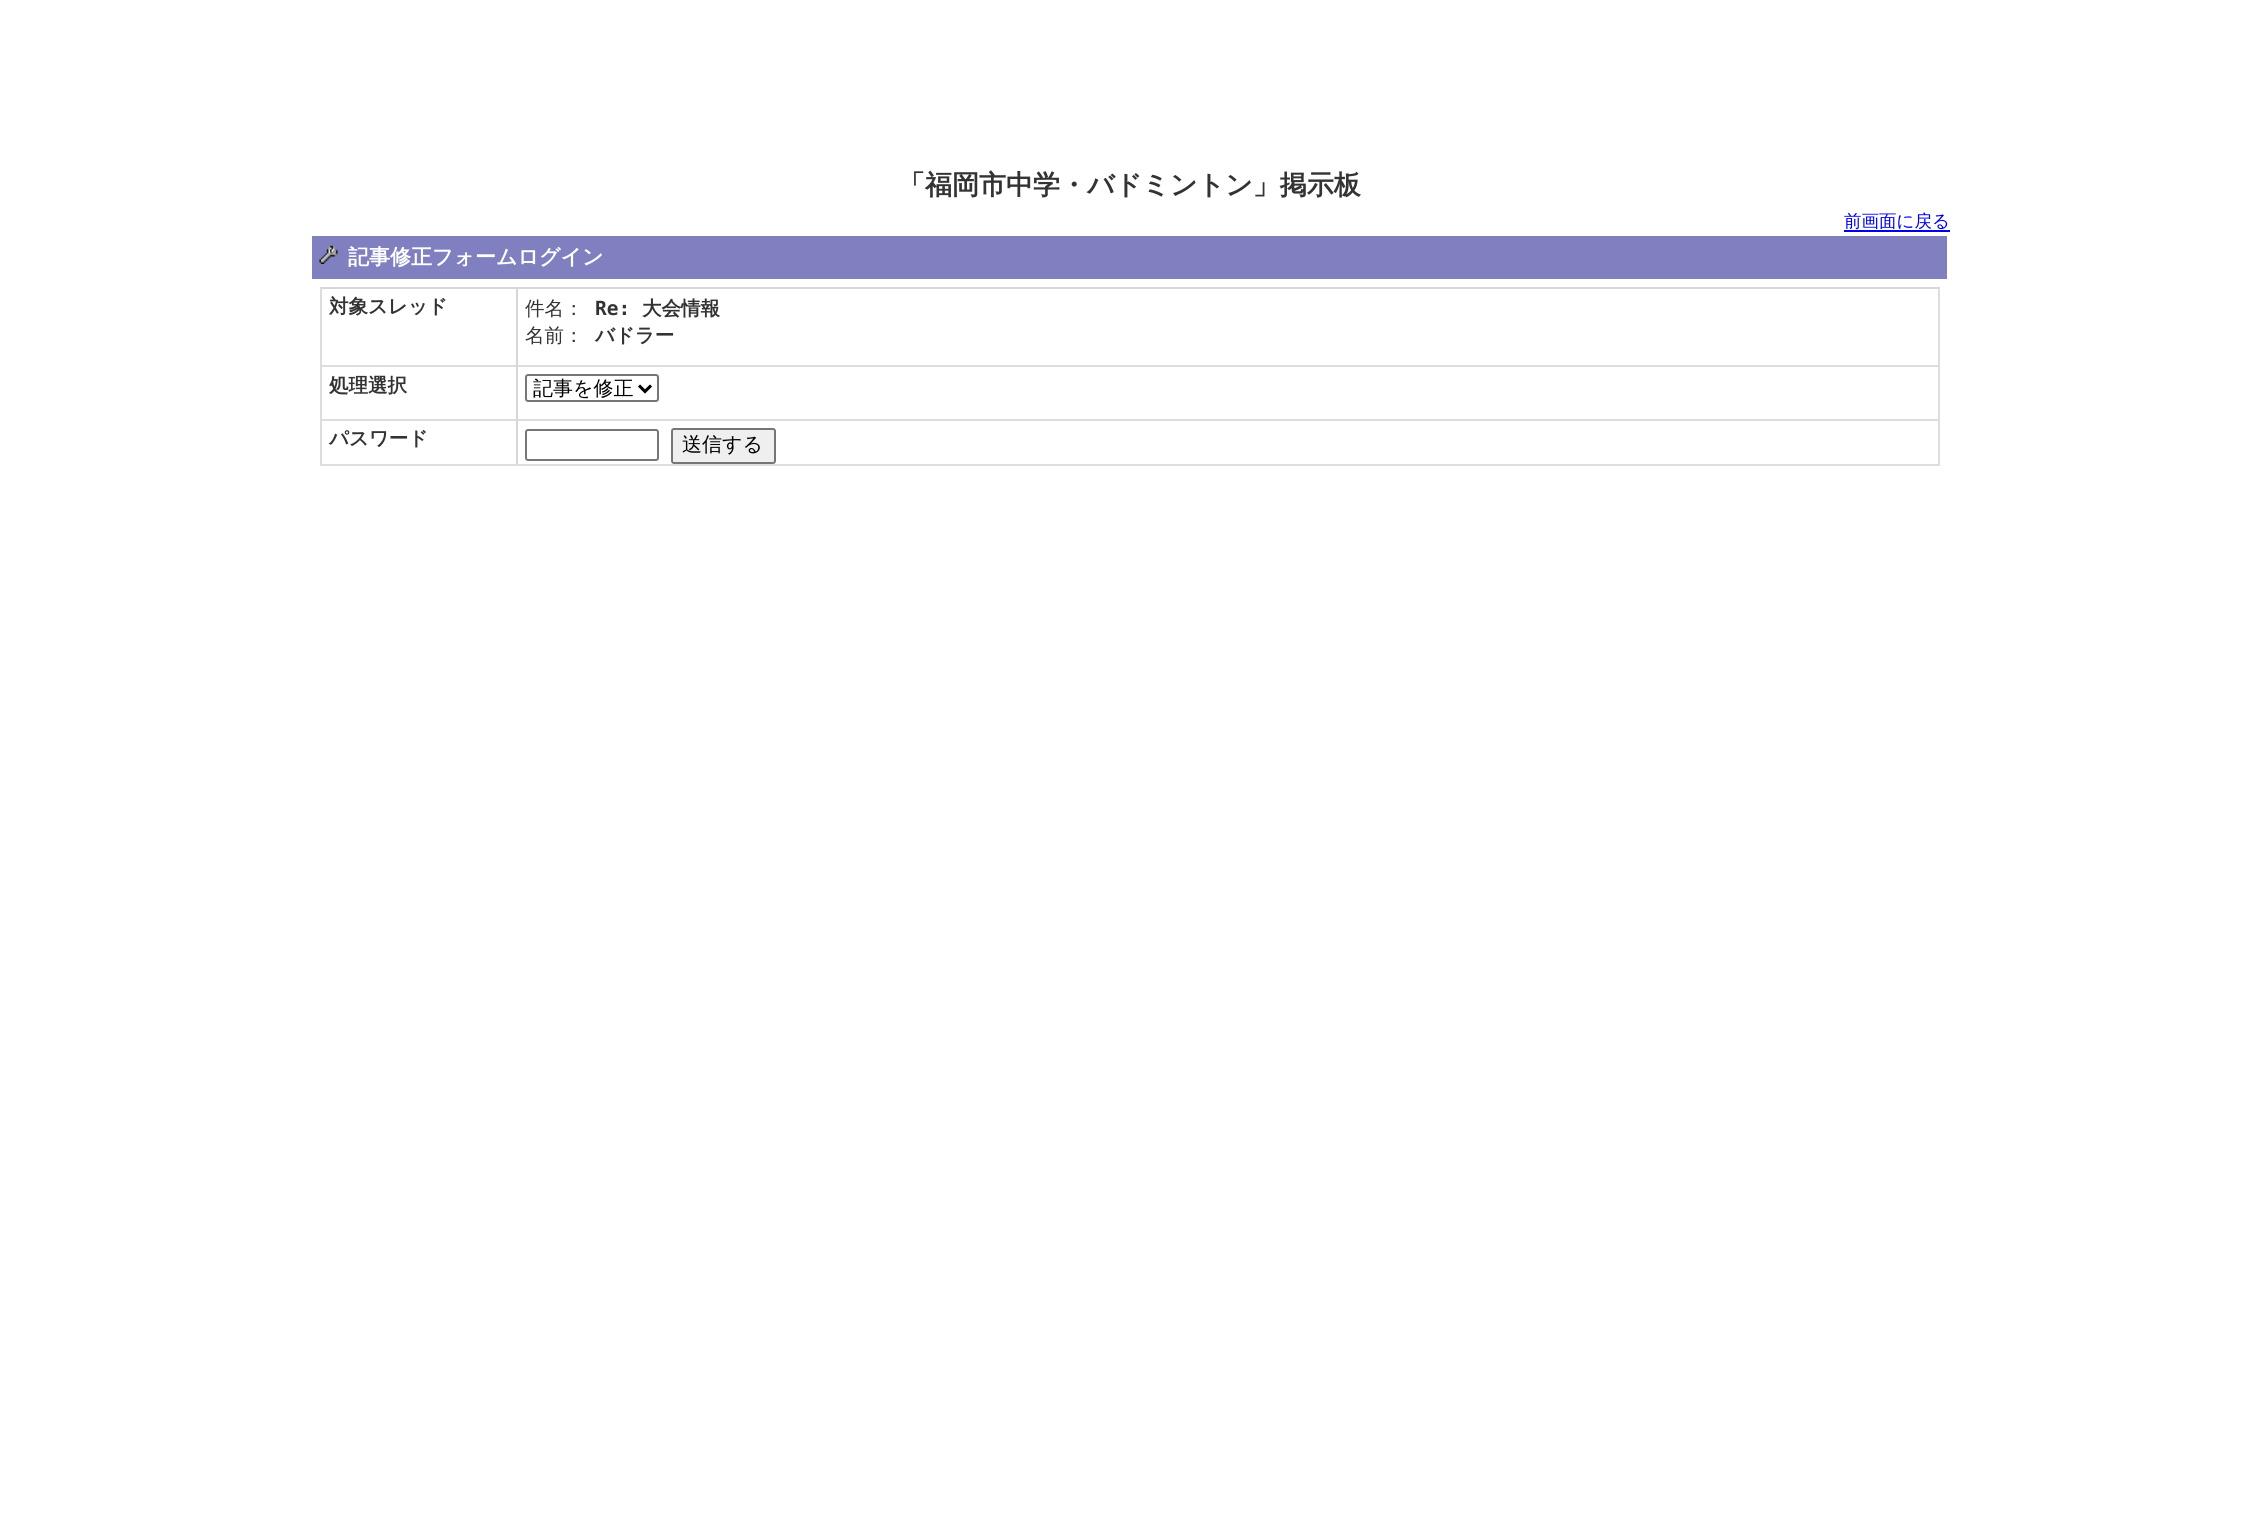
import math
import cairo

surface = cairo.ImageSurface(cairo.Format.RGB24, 2259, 1518)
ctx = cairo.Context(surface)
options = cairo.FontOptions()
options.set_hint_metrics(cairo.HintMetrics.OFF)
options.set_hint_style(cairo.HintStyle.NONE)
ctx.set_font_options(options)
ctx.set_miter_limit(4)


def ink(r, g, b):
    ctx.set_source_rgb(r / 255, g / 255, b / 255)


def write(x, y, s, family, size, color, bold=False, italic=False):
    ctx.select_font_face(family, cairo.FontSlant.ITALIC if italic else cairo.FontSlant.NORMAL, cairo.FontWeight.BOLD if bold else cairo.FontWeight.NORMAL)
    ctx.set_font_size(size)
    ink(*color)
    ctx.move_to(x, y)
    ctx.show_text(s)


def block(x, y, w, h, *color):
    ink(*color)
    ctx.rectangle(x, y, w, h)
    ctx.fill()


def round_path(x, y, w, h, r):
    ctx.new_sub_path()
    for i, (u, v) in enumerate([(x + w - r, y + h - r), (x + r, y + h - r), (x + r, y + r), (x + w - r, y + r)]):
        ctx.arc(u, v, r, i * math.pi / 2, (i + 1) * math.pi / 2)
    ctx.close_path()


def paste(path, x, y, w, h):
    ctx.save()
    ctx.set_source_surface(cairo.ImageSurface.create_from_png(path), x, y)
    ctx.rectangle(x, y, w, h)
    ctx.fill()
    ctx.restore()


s1 = dict(family="WenQuanYi Zen Hei", size=27, color=(51, 51, 51), bold=True)
s2 = dict(family="WenQuanYi Zen Hei Medium", size=17.5, color=(0, 0, 238))
s3 = dict(family="WenQuanYi Zen Hei", size=21, color=(255, 255, 255), bold=True)
s4 = dict(family="WenQuanYi Zen Hei", size=19.5, color=(51, 51, 51), bold=True)
s5 = dict(family="WenQuanYi Zen Hei Medium", size=19.5, color=(51, 51, 51))
s6 = dict(family="DejaVu Sans Mono", size=19.5, color=(51, 51, 51), bold=True)
s7 = dict(family="WenQuanYi Zen Hei Medium", size=20, color=(0, 0, 0))

ink(255, 255, 255)
ctx.paint()
write(898, 194, "「福岡市中学・バドミントン」掲示板", **s1)
write(1844, 227, "前画面に戻る", **s2)
block(1844, 230, 106, 2, 0, 0, 238)
block(312, 236, 1635, 43, 128, 128, 192)
paste("pic1.png", 319, 245, 19, 19)
write(348, 264, "記事修正フォームログイン", **s3)
block(320, 287, 1620, 2, 214, 214, 214)
block(1938, 288, 2, 78, 221, 221, 221)
block(320, 365, 1620, 2, 221, 221, 221)
block(320, 288, 2, 78, 221, 221, 221)
write(329, 313, "対象スレッド", **s4)
block(516, 288, 2, 77, 214, 214, 214)
write(525, 315, "件名：", **s5)
write(595, 315, "Re:", **s6)
write(642, 315, "大会情報", **s4)
write(525, 342, "名前：", **s5)
write(595, 342, "バドラー", **s4)
block(1938, 366, 2, 54, 221, 221, 221)
block(320, 419, 1620, 2, 221, 221, 221)
block(320, 366, 2, 54, 221, 221, 221)
write(329, 392, "処理選択", **s4)
block(516, 366, 2, 53, 214, 214, 214)
round_path(526, 375, 132, 26, 2)
ink(118, 118, 118)
ctx.stroke()
ctx.new_path()
ctx.move_to(639, 385.5)
ctx.line_to(645, 391.5)
ctx.line_to(651, 385.5)
ink(0, 0, 0)
ctx.set_line_width(3)
ctx.stroke()
write(533, 395, "記事を修正", **s7)
block(1938, 420, 2, 45, 221, 221, 221)
block(320, 464, 1620, 2, 221, 221, 221)
block(320, 420, 2, 45, 221, 221, 221)
write(329, 445, "パスワード", **s4)
block(516, 420, 2, 44, 214, 214, 214)
round_path(526, 430, 132, 30, 2)
ink(118, 118, 118)
ctx.set_line_width(2)
ctx.stroke()
ink(239, 239, 239)
round_path(672, 429, 103, 34, 2)
ctx.fill_preserve()
ink(118, 118, 118)
ctx.stroke()
write(682, 451, "送信する", **s7)
surface.write_to_png("screenshot.png")
